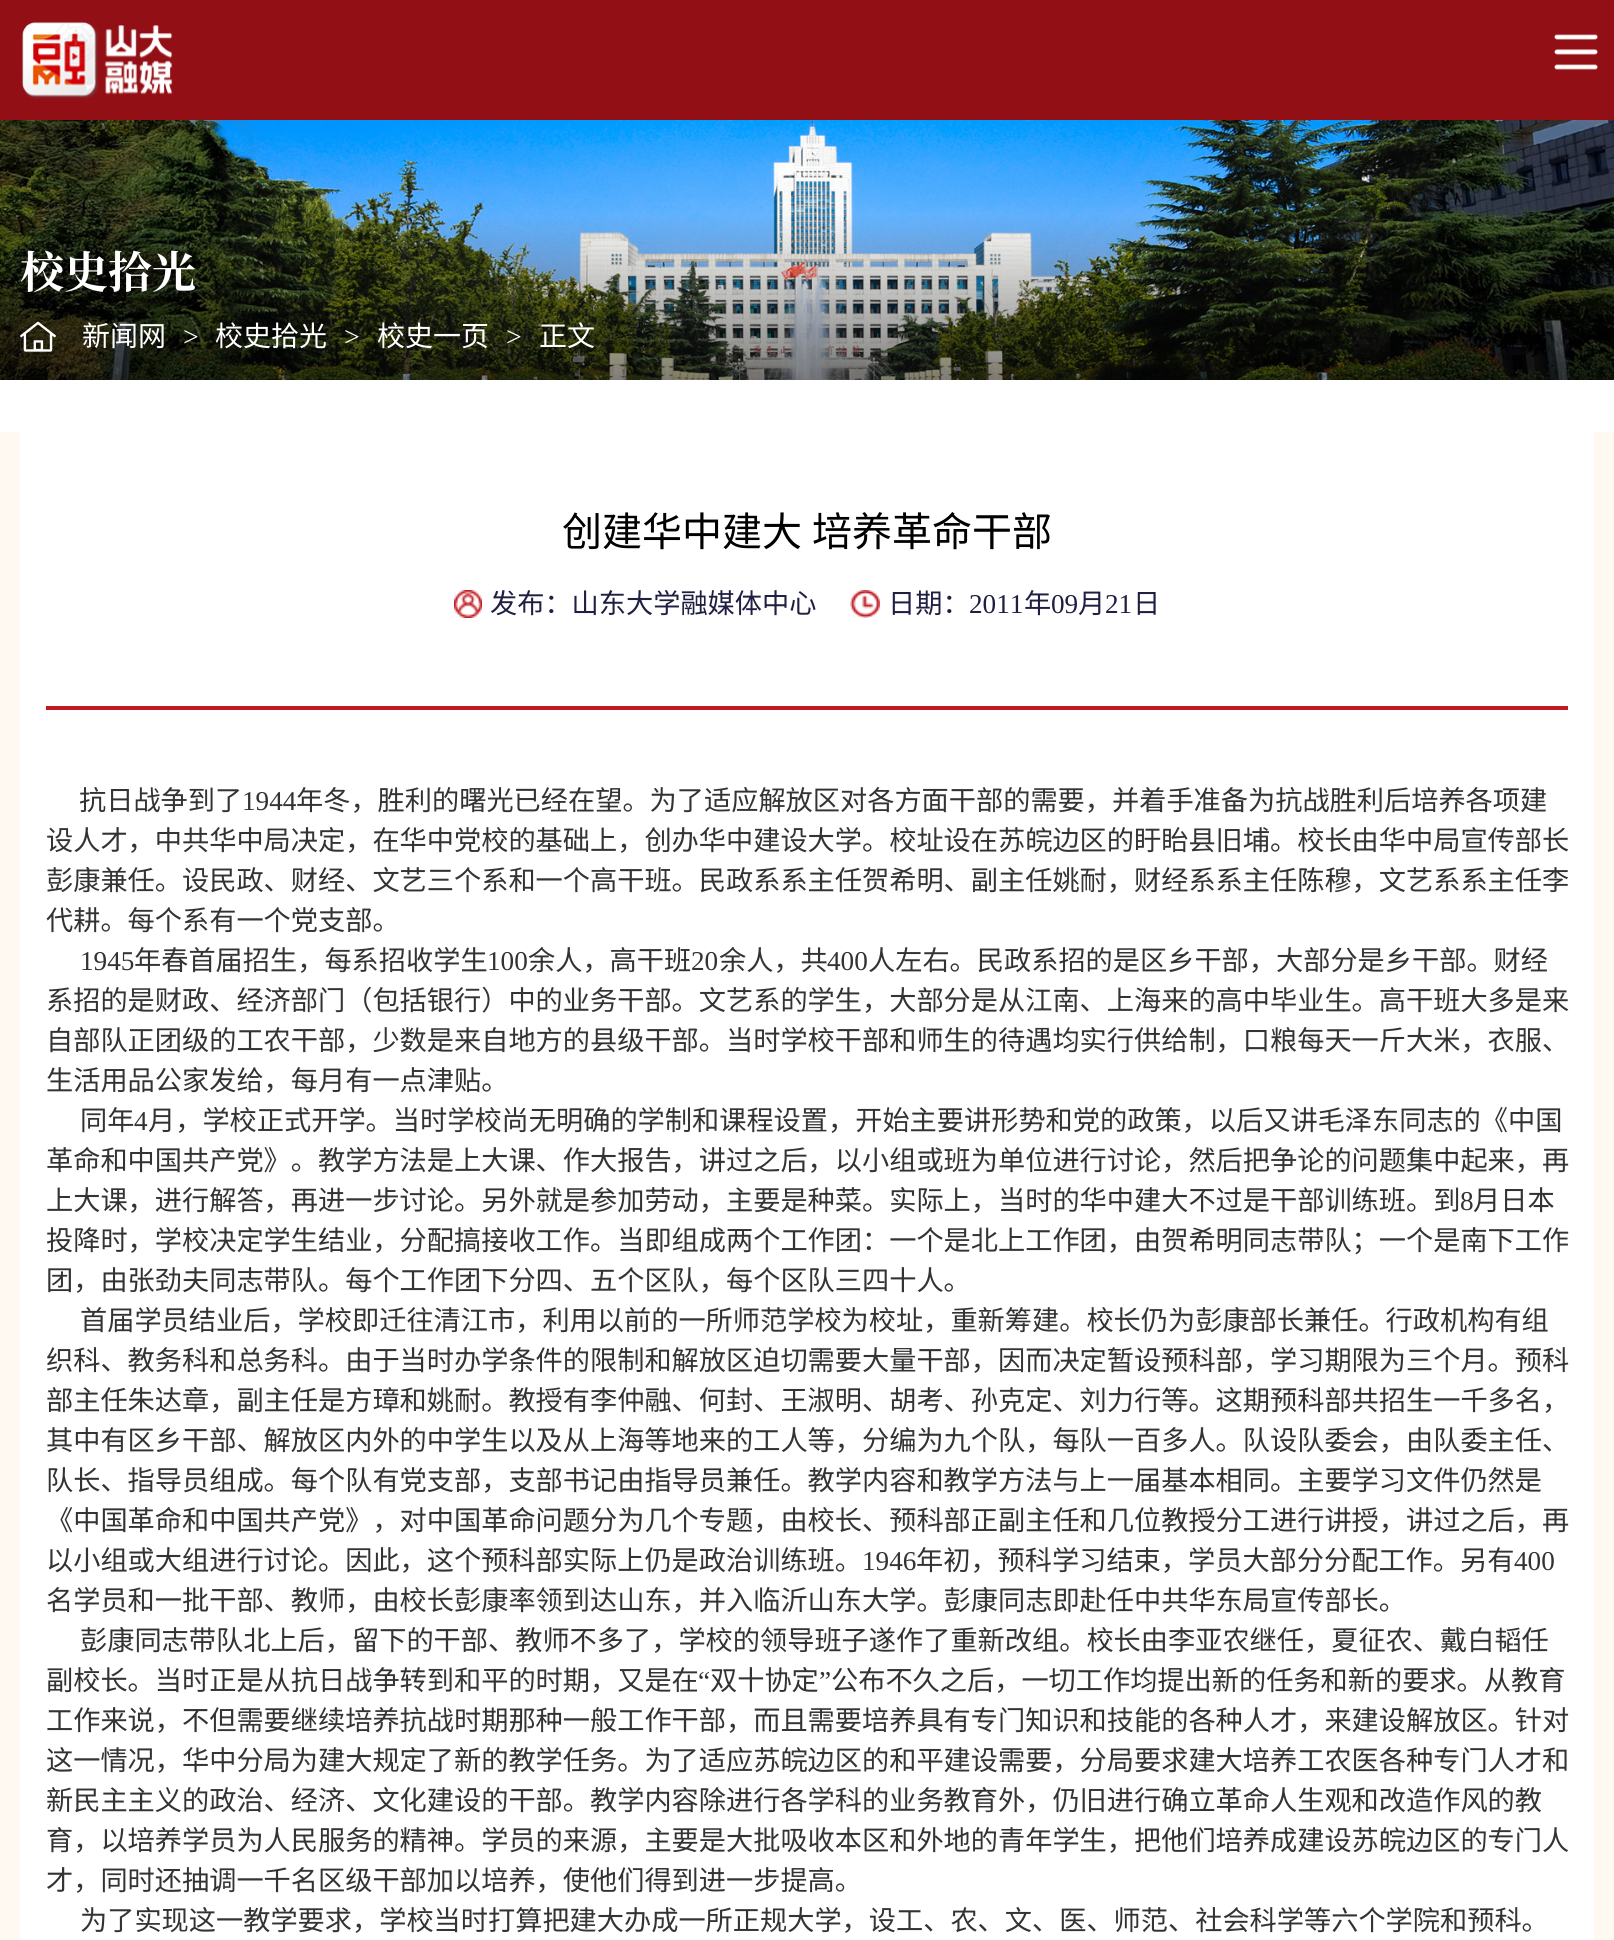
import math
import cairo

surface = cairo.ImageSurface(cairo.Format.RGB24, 1614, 1940)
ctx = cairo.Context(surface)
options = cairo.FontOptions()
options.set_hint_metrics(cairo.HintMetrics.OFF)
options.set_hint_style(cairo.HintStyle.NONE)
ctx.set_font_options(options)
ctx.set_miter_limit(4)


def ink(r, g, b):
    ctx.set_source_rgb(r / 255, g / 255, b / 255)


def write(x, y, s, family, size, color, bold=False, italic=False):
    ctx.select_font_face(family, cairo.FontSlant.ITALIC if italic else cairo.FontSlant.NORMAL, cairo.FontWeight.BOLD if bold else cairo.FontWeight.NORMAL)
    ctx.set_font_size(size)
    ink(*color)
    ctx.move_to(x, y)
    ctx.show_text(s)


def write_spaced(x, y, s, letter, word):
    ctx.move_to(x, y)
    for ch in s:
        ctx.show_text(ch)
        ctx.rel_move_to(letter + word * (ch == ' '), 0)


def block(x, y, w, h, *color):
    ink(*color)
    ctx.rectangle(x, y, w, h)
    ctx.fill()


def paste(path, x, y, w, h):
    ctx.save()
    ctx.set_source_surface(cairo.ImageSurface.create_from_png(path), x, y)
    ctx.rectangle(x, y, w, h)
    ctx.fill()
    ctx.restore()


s1 = dict(family="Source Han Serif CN", size=44, color=(255, 255, 255), bold=True)
s2 = dict(family="Noto Sans CJK SC", size=28, color=(255, 255, 255))
s3 = dict(family="Liberation Serif", size=28, color=(255, 255, 255))
s4 = dict(family="Noto Sans CJK SC", size=27.2, color=(30, 31, 66))
s5 = dict(family="Liberation Serif", size=27.2, color=(30, 31, 66))
s6 = dict(family="Noto Sans CJK SC", size=27.2, color=(51, 51, 51))
s7 = dict(family="Liberation Serif", size=27.2, color=(51, 51, 51))

ink(255, 255, 255)
ctx.paint()
block(0, 0, 1614, 120, 146, 15, 21)
paste("pic1.png", 22, 22, 151, 77)
paste("pic2.png", 1554, 34, 44, 36)
paste("pic3.png", 0, 120, 1614, 260)
write(20, 288, "校史拾光", **s1)
paste("pic4.png", 20, 321, 36, 31)
write(82, 346, "新闻网", **s2)
write(183, 346, ">", **s3)
write(215, 346, "校史拾光", **s2)
write(344, 346, ">", **s3)
write(377, 346, "校史一页", **s2)
write(506, 346, ">", **s3)
write(539, 346, "正文", **s2)
block(0, 432, 1614, 1508, 255, 249, 241)
block(20, 432, 1574, 1508, 255, 255, 255)
block(46, 706, 1522, 4, 192, 25, 32)
ctx.set_font_size(40)
ink(0, 0, 0)
write_spaced(562, 546, "创建华中建大 培养革命干部", 0, 1)
paste("pic5.png", 454, 590, 28, 28)
write(490, 613, "发布：山东大学融媒体中心", **s4)
paste("pic6.png", 850, 590, 30, 28)
write(888, 613, "日期：", **s4)
write(969, 613, "2011", **s5)
write(1024, 613, "年", **s4)
write(1051, 613, "09", **s5)
write(1078, 613, "月", **s4)
write(1105, 613, "21", **s5)
write(1133, 613, "日", **s4)
write(79, 810, "抗日战争到了", **s6)
write(242, 810, "1944", **s7)
write(296, 810, "年冬，胜利的曙光已经在望。为了适应解放区对各方面干部的需要，并着手准备为抗战胜利后培养各项建", **s6)
write(46, 850, "设人才，中共华中局决定，在华中党校的基础上，创办华中建设大学。校址设在苏皖边区的盱眙县旧埔。校长由华中局宣传部长", **s6)
write(46, 890, "彭康兼任。设民政、财经、文艺三个系和一个高干班。民政系系主任贺希明、副主任姚耐，财经系系主任陈穆，文艺系系主任李", **s6)
write(46, 930, "代耕。每个系有一个党支部。", **s6)
write(80, 970, "1945", **s7)
write(134, 970, "年春首届招生，每系招收学生", **s6)
write(487, 970, "100", **s7)
write(528, 970, "余人，高干班", **s6)
write(691, 970, "20", **s7)
write(719, 970, "余人，共", **s6)
write(827, 970, "400", **s7)
write(868, 970, "人左右。民政系招的是区乡干部，大部分是乡干部。财经", **s6)
write(46, 1010, "系招的是财政、经济部门（包括银行）中的业务干部。文艺系的学生，大部分是从江南、上海来的高中毕业生。高干班大多是来", **s6)
write(46, 1050, "自部队正团级的工农干部，少数是来自地方的县级干部。当时学校干部和师生的待遇均实行供给制，口粮每天一斤大米，衣服、", **s6)
write(46, 1090, "生活用品公家发给，每月有一点津贴。", **s6)
write(80, 1130, "同年", **s6)
write(134, 1130, "4", **s7)
write(148, 1130, "月，学校正式开学。当时学校尚无明确的学制和课程设置，开始主要讲形势和党的政策，以后又讲毛泽东同志的《中国", **s6)
write(46, 1170, "革命和中国共产党》。教学方法是上大课、作大报告，讲过之后，以小组或班为单位进行讨论，然后把争论的问题集中起来，再", **s6)
write(46, 1210, "上大课，进行解答，再进一步讨论。另外就是参加劳动，主要是种菜。实际上，当时的华中建大不过是干部训练班。到", **s6)
write(1460, 1210, "8", **s7)
write(1473, 1210, "月日本", **s6)
write(46, 1250, "投降时，学校决定学生结业，分配搞接收工作。当即组成两个工作团：一个是北上工作团，由贺希明同志带队；一个是南下工作", **s6)
write(46, 1290, "团，由张劲夫同志带队。每个工作团下分四、五个区队，每个区队三四十人。", **s6)
write(80, 1330, "首届学员结业后，学校即迁往清江市，利用以前的一所师范学校为校址，重新筹建。校长仍为彭康部长兼任。行政机构有组", **s6)
write(46, 1370, "织科、教务科和总务科。由于当时办学条件的限制和解放区迫切需要大量干部，因而决定暂设预科部，学习期限为三个月。预科", **s6)
write(46, 1410, "部主任朱达章，副主任是方璋和姚耐。教授有李仲融、何封、王淑明、胡考、孙克定、刘力行等。这期预科部共招生一千多名，", **s6)
write(46, 1450, "其中有区乡干部、解放区内外的中学生以及从上海等地来的工人等，分编为九个队，每队一百多人。队设队委会，由队委主任、", **s6)
write(46, 1490, "队长、指导员组成。每个队有党支部，支部书记由指导员兼任。教学内容和教学方法与上一届基本相同。主要学习文件仍然是", **s6)
write(46, 1530, "《中国革命和中国共产党》，对中国革命问题分为几个专题，由校长、预科部正副主任和几位教授分工进行讲授，讲过之后，再", **s6)
write(46, 1570, "以小组或大组进行讨论。因此，这个预科部实际上仍是政治训练班。", **s6)
write(862, 1570, "1946", **s7)
write(916, 1570, "年初，预科学习结束，学员大部分分配工作。另有", **s6)
write(1514, 1570, "400", **s7)
write(46, 1610, "名学员和一批干部、教师，由校长彭康率领到达山东，并入临沂山东大学。彭康同志即赴任中共华东局宣传部长。", **s6)
write(80, 1650, "彭康同志带队北上后，留下的干部、教师不多了，学校的领导班子遂作了重新改组。校长由李亚农继任，夏征农、戴白韬任", **s6)
write(46, 1690, "副校长。当时正是从抗日战争转到和平的时期，又是在", **s6)
write(698, 1690, "“", **s7)
write(710, 1690, "双十协定", **s6)
write(819, 1690, "”", **s7)
write(831, 1690, "公布不久之后，一切工作均提出新的任务和新的要求。从教育", **s6)
write(46, 1730, "工作来说，不但需要继续培养抗战时期那种一般工作干部，而且需要培养具有专门知识和技能的各种人才，来建设解放区。针对", **s6)
write(46, 1770, "这一情况，华中分局为建大规定了新的教学任务。为了适应苏皖边区的和平建设需要，分局要求建大培养工农医各种专门人才和", **s6)
write(46, 1810, "新民主主义的政治、经济、文化建设的干部。教学内容除进行各学科的业务教育外，仍旧进行确立革命人生观和改造作风的教", **s6)
write(46, 1850, "育，以培养学员为人民服务的精神。学员的来源，主要是大批吸收本区和外地的青年学生，把他们培养成建设苏皖边区的专门人", **s6)
write(46, 1890, "才，同时还抽调一千名区级干部加以培养，使他们得到进一步提高。", **s6)
write(80, 1930, "为了实现这一教学要求，学校当时打算把建大办成一所正规大学，设工、农、文、医、师范、社会科学等六个学院和预科。", **s6)
surface.write_to_png("screenshot.png")
